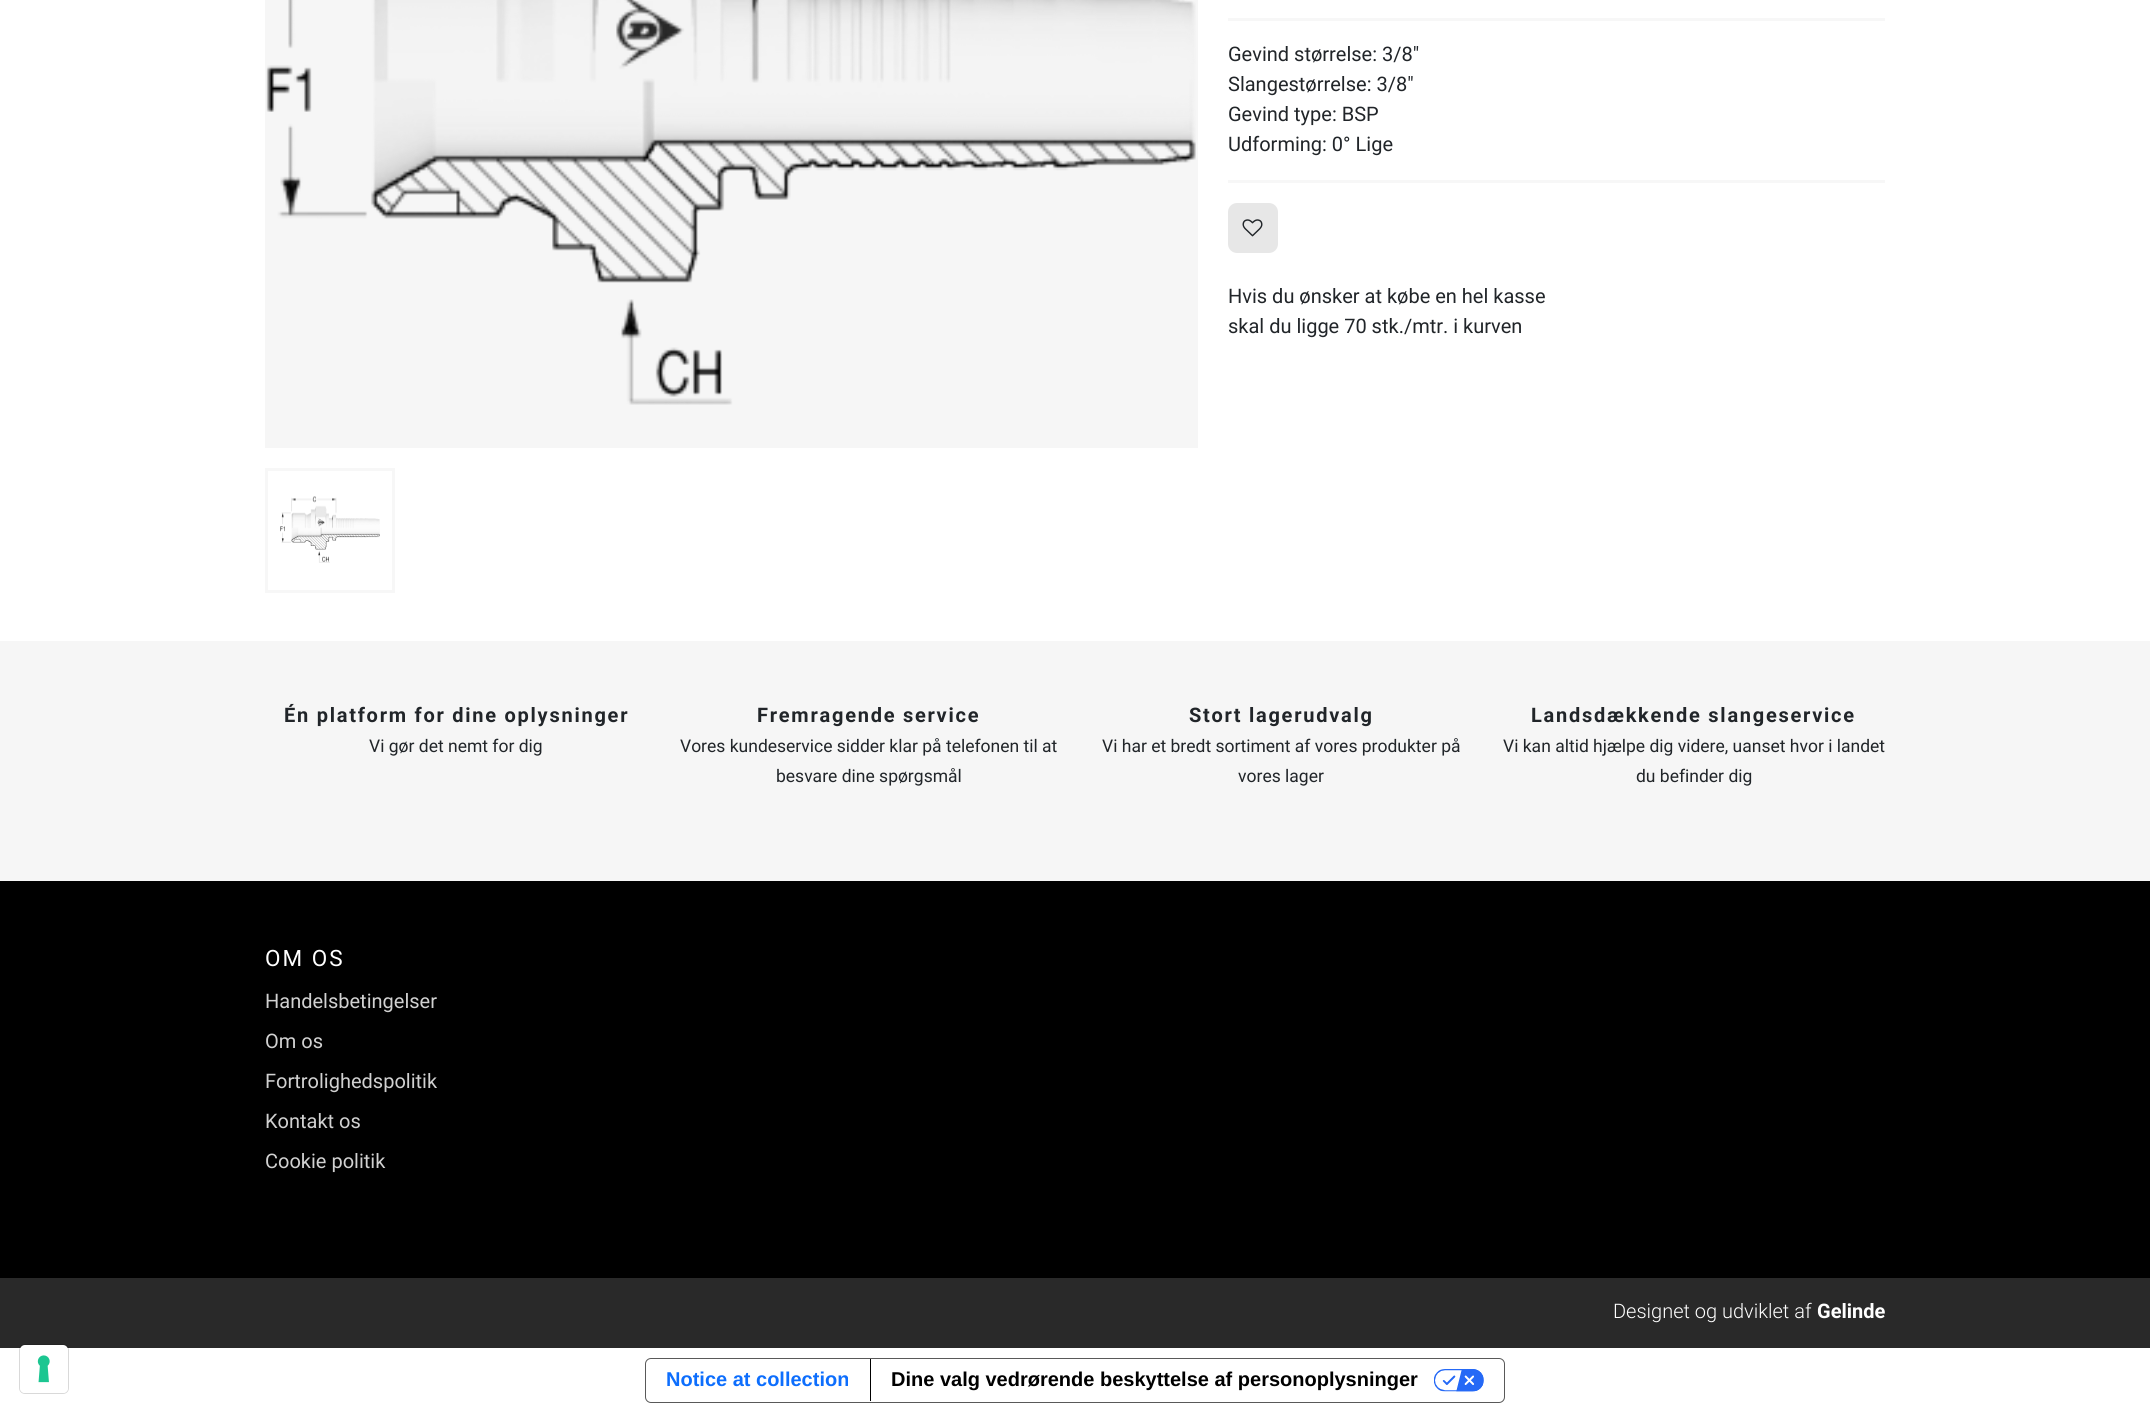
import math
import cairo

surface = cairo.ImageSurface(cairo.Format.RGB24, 2150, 1412)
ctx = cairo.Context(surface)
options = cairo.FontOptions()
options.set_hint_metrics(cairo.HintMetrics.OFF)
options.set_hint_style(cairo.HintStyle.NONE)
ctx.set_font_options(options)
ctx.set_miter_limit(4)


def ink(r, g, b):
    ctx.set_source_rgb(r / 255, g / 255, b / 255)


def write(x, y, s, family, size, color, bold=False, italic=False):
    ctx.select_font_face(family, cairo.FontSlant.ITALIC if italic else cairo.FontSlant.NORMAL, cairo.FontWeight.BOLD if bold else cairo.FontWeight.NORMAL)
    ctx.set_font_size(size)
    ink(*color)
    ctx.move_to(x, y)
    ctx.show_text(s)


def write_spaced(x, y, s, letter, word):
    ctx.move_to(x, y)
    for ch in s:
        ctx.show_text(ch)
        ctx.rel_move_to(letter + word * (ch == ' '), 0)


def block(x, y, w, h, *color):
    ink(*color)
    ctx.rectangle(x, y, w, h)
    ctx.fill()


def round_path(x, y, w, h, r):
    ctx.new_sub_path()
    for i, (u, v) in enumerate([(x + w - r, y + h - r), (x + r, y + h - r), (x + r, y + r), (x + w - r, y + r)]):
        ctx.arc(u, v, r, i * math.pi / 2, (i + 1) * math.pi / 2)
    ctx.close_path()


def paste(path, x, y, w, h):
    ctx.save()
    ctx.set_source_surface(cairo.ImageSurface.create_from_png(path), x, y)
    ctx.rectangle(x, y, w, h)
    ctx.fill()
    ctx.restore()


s1 = dict(family="Roboto", size=20, color=(33, 37, 41))
s2 = dict(family="Roboto", size=17.5, color=(33, 37, 41))
s3 = dict(family="Roboto", size=20, color=(209, 209, 209))
s4 = dict(family="Roboto Light", size=20, color=(255, 255, 255))
s5 = dict(family="Roboto", size=20, color=(255, 255, 255), bold=True)
s6 = dict(family="Liberation Sans", size=20, color=(13, 110, 253), bold=True)
s7 = dict(family="Liberation Sans", size=20, color=(0, 0, 0), bold=True)

ink(255, 255, 255)
ctx.paint()
block(265, 0, 933, 448, 246, 246, 246)
paste("pic1.png", 266, 0, 930, 405)
ctx.rectangle(266.5, 469.5, 127, 122)
ink(247, 247, 247)
ctx.set_line_width(3)
ctx.stroke()
paste("pic2.png", 280, 496, 100, 67)
block(1228, 18, 657, 3, 247, 247, 247)
block(1228, 180, 657, 3, 247, 247, 247)
write(1228, 61, "Gevind størrelse: 3/8\"", **s1)
write(1228, 91, "Slangestørrelse: 3/8\"", **s1)
write(1228, 121, "Gevind type: BSP", **s1)
write(1228, 151, "Udforming: 0° Lige", **s1)
ink(231, 231, 231)
round_path(1228, 203, 50, 50, 9)
ctx.fill()
paste("pic3.png", 1242, 219, 21, 18)
write(1228, 303, "Hvis du ønsker at købe en hel kasse", **s1)
write(1228, 333, "skal du ligge 70 stk./mtr. i kurven", **s1)
block(0, 641, 2150, 240, 246, 246, 246)
ctx.select_font_face("Roboto", cairo.FontSlant.NORMAL, cairo.FontWeight.BOLD)
ink(33, 37, 41)
write_spaced(284, 722, "Én platform for dine oplysninger", 1.75, 0)
write(369, 752, "Vi gør det nemt for dig", **s2)
ctx.select_font_face("Roboto", cairo.FontSlant.NORMAL, cairo.FontWeight.BOLD)
ctx.set_font_size(20)
write_spaced(757, 722, "Fremragende service", 1.75, 0)
write(680, 752, "Vores kundeservice sidder klar på telefonen til at", **s2)
write(776, 782, "besvare dine spørgsmål", **s2)
ctx.select_font_face("Roboto", cairo.FontSlant.NORMAL, cairo.FontWeight.BOLD)
ctx.set_font_size(20)
write_spaced(1189, 722, "Stort lagerudvalg", 1.75, 0)
write(1102, 752, "Vi har et bredt sortiment af vores produkter på", **s2)
write(1238, 782, "vores lager", **s2)
ctx.select_font_face("Roboto", cairo.FontSlant.NORMAL, cairo.FontWeight.BOLD)
ctx.set_font_size(20)
write_spaced(1531, 722, "Landsdækkende slangeservice", 1.75, 0)
write(1503, 752, "Vi kan altid hjælpe dig videre, uanset hvor i landet", **s2)
write(1636, 782, "du befinder dig", **s2)
block(0, 881, 2150, 397, 0, 0, 0)
ctx.set_font_size(22.5)
ink(255, 255, 255)
write_spaced(265, 966, "OM OS", 2, 0)
write(265, 1008, "Handelsbetingelser", **s3)
write(265, 1048, "Om os", **s3)
write(265, 1088, "Fortrolighedspolitik", **s3)
write(265, 1128, "Kontakt os", **s3)
write(265, 1168, "Cookie politik", **s3)
block(0, 1278, 2150, 70, 41, 41, 41)
write(1613, 1318, "Designet og udviklet af", **s4)
write(1817, 1318, "Gelinde", **s5)
round_path(19.5, 1344.5, 49, 49, 5.5)
ctx.set_source_rgba(0, 0, 0, 0.15)
ctx.set_line_width(1)
ctx.stroke()
ink(255, 255, 255)
round_path(20, 1345, 48, 48, 5)
ctx.fill()
paste("pic4.png", 37, 1355, 13, 28)
round_path(645.5, 1358.5, 859, 44, 5.5)
ink(89, 89, 89)
ctx.stroke()
write(666, 1386, "Notice at collection", **s6)
block(870, 1359, 1, 42, 0, 0, 0)
write(891, 1386, "Dine valg vedrørende beskyttelse af personoplysninger", **s7)
paste("pic5.png", 1434, 1369, 50, 23)
surface.write_to_png("screenshot.png")
